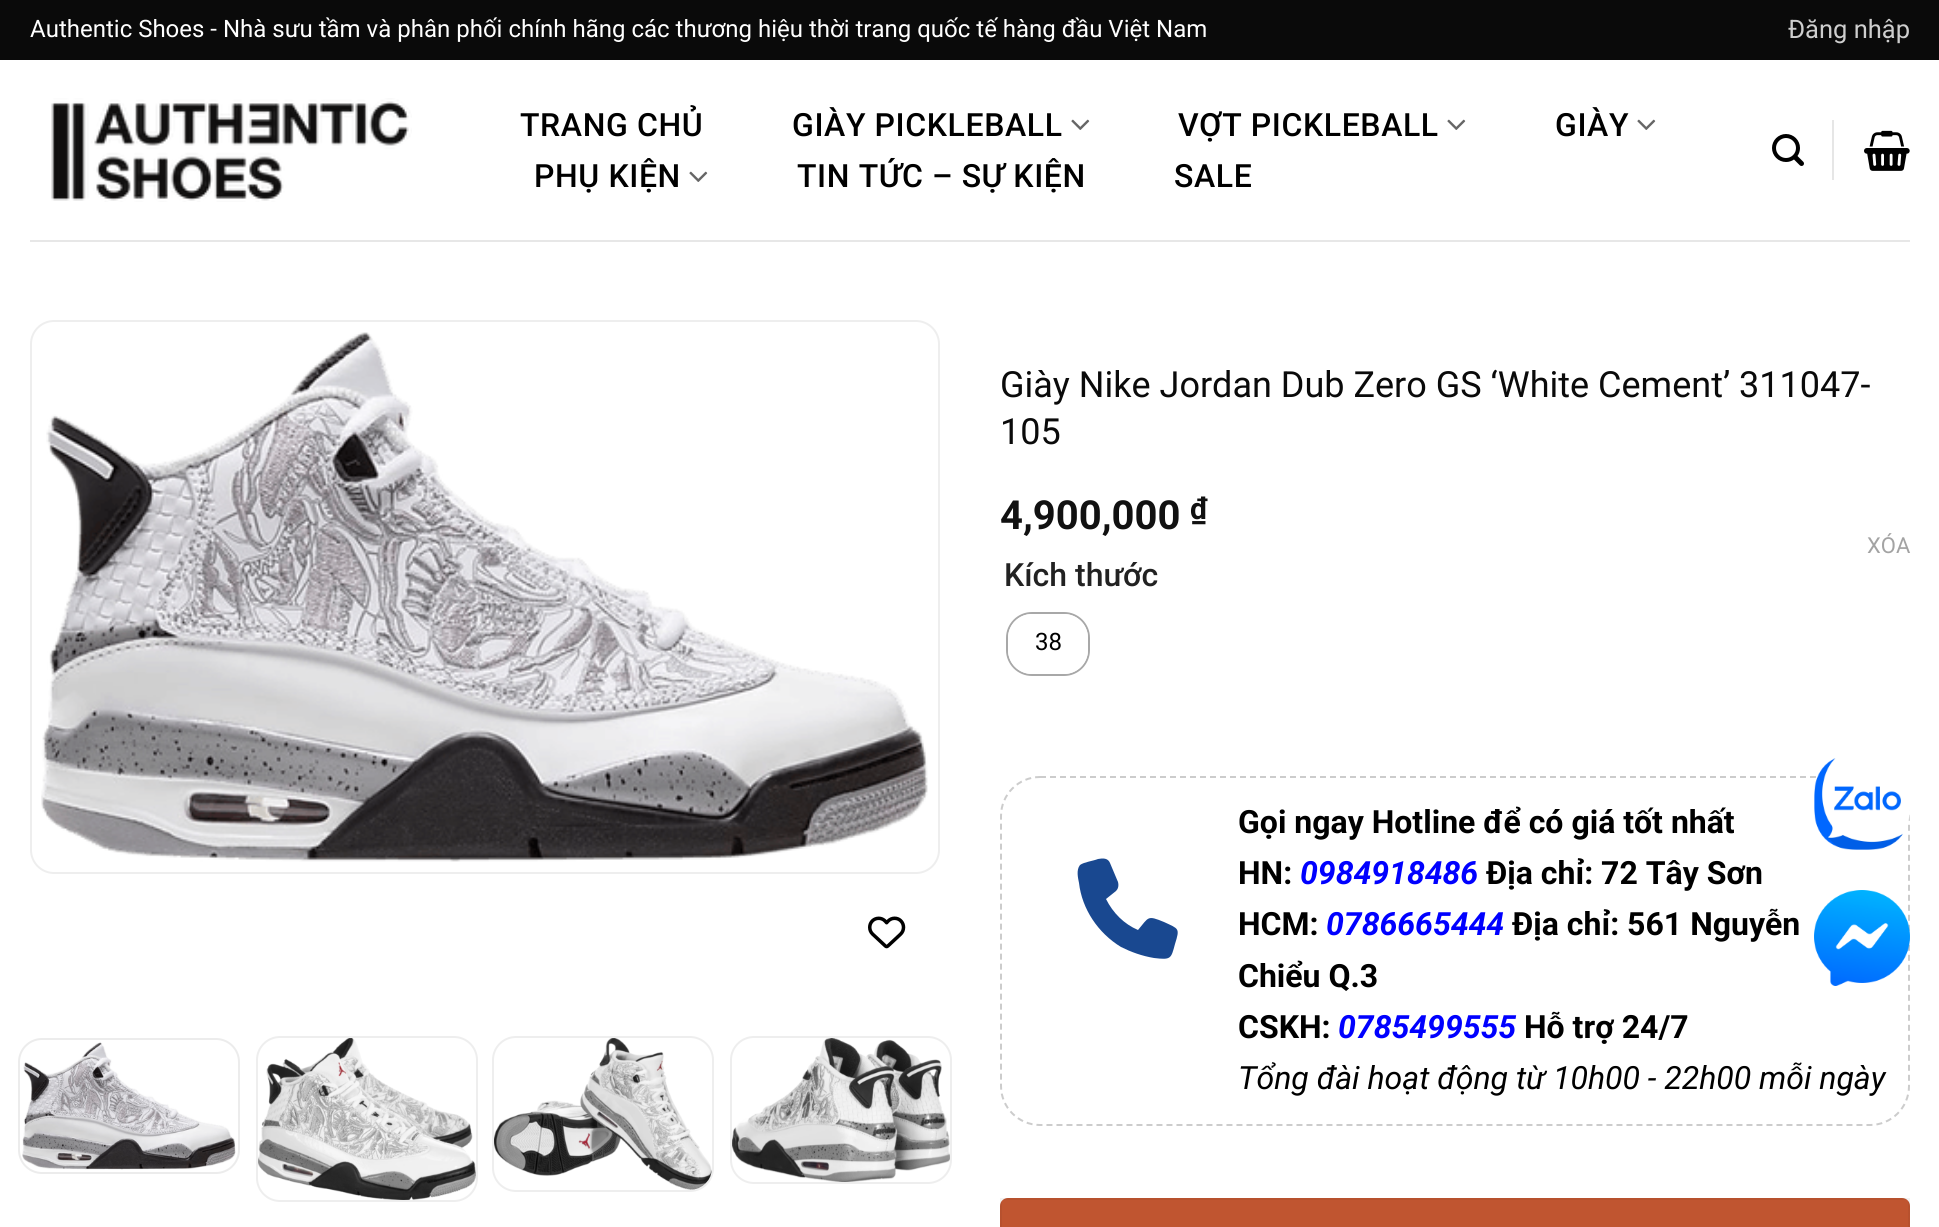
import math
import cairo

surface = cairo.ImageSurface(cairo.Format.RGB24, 1939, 1227)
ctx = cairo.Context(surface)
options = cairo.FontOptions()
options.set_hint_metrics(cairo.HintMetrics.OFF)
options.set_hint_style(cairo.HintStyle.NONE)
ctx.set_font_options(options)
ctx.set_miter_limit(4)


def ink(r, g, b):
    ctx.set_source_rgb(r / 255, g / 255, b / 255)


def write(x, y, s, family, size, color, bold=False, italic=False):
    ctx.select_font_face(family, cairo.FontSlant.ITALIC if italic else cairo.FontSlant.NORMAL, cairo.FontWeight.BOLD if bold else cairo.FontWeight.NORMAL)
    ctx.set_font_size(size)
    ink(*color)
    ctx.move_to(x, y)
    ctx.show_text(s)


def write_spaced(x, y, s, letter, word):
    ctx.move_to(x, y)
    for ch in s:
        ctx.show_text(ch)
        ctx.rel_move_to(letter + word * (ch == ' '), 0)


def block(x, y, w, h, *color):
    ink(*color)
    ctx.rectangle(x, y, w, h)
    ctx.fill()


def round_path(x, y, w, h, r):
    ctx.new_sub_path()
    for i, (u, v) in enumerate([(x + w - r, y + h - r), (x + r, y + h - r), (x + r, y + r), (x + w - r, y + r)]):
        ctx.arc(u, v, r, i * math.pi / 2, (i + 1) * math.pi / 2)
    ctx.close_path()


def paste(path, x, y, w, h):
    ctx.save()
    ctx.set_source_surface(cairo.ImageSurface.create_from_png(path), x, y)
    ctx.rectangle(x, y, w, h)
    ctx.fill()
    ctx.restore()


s1 = dict(family="Roboto", size=24, color=(255, 255, 255))
s2 = dict(family="Roboto", size=25.5, color=(206, 206, 206))
s3 = dict(family="Roboto", size=36, color=(10, 10, 10))
s4 = dict(family="Roboto", size=40, color=(17, 17, 17), bold=True)
s5 = dict(family="Roboto", size=30, color=(17, 17, 17), bold=True)
s6 = dict(family="Roboto", size=22, color=(163, 163, 163))
s7 = dict(family="Roboto", size=24, color=(0, 0, 0))
s8 = dict(family="Roboto Medium", size=32, color=(34, 34, 34))
s9 = dict(family="Roboto", size=32, color=(0, 0, 0), bold=True)
s10 = dict(family="Roboto", size=32, color=(0, 0, 255), bold=True, italic=True)
s11 = dict(family="Roboto", size=32, color=(0, 0, 0), italic=True)

ink(255, 255, 255)
ctx.paint()
block(0, 0, 1939, 60, 10, 10, 10)
write(30, 37, "Authentic Shoes - Nhà sưu tầm và phân phối chính hãng các thương hiệu thời trang quốc tế hàng đầu Việt Nam", **s1)
write(1788, 38, "Đăng nhập", **s2)
paste("pic1.png", 51, 98, 361, 104)
ctx.select_font_face("Roboto Medium")
ctx.set_font_size(32)
ink(0, 0, 0)
write_spaced(520, 136, "TRANG CHỦ", 0.6, 0)
write_spaced(792, 136, "GIÀY PICKLEBALL", 0.6, 0)
paste("pic2.png", 1071, 119, 19, 11)
write_spaced(1178, 136, "VỢT PICKLEBALL", 0.6, 0)
paste("pic2.png", 1447, 119, 19, 11)
write_spaced(1555, 136, "GIÀY", 0.6, 0)
paste("pic2.png", 1637, 119, 19, 11)
write_spaced(534, 187, "PHỤ KIỆN", 0.6, 0)
paste("pic2.png", 689, 171, 19, 11)
write_spaced(797, 187, "TIN TỨC – SỰ KIỆN", 0.6, 0)
write_spaced(1174, 187, "SALE", 0.6, 0)
paste("pic3.png", 1772, 134, 32, 32)
block(1832, 120, 2, 60, 230, 230, 230)
paste("pic4.png", 1864, 130, 46, 41)
block(30, 240, 1880, 2, 231, 231, 231)
round_path(31, 321, 908, 552, 23)
ink(238, 238, 238)
ctx.stroke()
paste("pic5.png", 41, 332, 887, 530)
paste("pic6.png", 868, 916, 38, 33)
round_path(19, 1039, 220, 134, 23)
ink(236, 236, 236)
ctx.stroke()
paste("pic7.png", 22, 1042, 214, 128)
round_path(257, 1037, 220, 164, 23)
ink(238, 238, 238)
ctx.stroke()
paste("pic8.png", 258, 1038, 218, 162)
round_path(493, 1037, 220, 154, 23)
ctx.stroke()
paste("pic9.png", 494, 1038, 218, 152)
round_path(731, 1037, 220, 146, 23)
ctx.stroke()
paste("pic10.png", 732, 1038, 218, 144)
write(1000, 397, "Giày Nike Jordan Dub Zero GS ‘White Cement’ 311047-", **s3)
write(1000, 444, "105", **s3)
write(1000, 529, "4,900,000", **s4)
write(1190, 519, "₫", **s5)
write(1867, 553, "XÓA", **s6)
round_path(1007, 613, 82, 62, 25)
ink(168, 168, 168)
ctx.stroke()
ink(255, 255, 255)
round_path(1008, 614, 80, 60, 24)
ctx.fill()
write(1035, 650, "38", **s7)
write(1004, 586, "Kích thước", **s8)
ctx.new_path()
ctx.move_to(1040, 777)
ctx.line_to(1870, 777)
ctx.curve_to(1891.5, 777, 1909, 794.5, 1909, 816)
ctx.line_to(1909, 1086)
ctx.curve_to(1909, 1107.5, 1891.5, 1125, 1870, 1125)
ctx.line_to(1040, 1125)
ctx.curve_to(1018.5, 1125, 1001, 1107.5, 1001, 1086)
ctx.line_to(1001, 816)
ctx.curve_to(1001, 794.5, 1018.5, 777, 1040, 777)
ctx.close_path()
ink(204, 204, 204)
ctx.set_dash([6, 4])
ctx.stroke()
ink(25, 72, 144)
ctx.new_path()
ctx.move_to(1110, 863)
ctx.curve_to(1108, 858, 1103, 858, 1098, 859)
ctx.curve_to(1093, 861, 1084, 862, 1080, 865)
ctx.curve_to(1076, 870, 1078, 878, 1079, 883)
ctx.curve_to(1082, 909, 1098, 933, 1121, 947)
ctx.curve_to(1131, 952, 1142, 956, 1154, 958)
ctx.curve_to(1171, 960, 1171, 959, 1175, 944)
ctx.curve_to(1180, 928, 1179, 929, 1164, 922)
ctx.curve_to(1147, 915, 1149, 917, 1138, 930)
ctx.curve_to(1124, 924, 1113, 913, 1106, 899)
ctx.line_to(1116, 891)
ctx.curve_to(1118, 889, 1119, 886, 1118, 882)
ctx.close_path()
ctx.fill()
write(1238, 833, "Gọi ngay Hotline để có giá tốt nhất", **s9)
write(1238, 884, "HN:", **s9)
write(1300, 884, "0984918486", **s10)
write(1486, 884, "Địa chỉ: 72 Tây Sơn", **s9)
write(1238, 935, "HCM:", **s9)
write(1326, 935, "0786665444", **s10)
write(1512, 935, "Địa chỉ: 561 Nguyễn", **s9)
write(1238, 987, "Chiểu Q.3", **s9)
write(1238, 1038, "CSKH:", **s9)
write(1338, 1038, "0785499555", **s10)
write(1524, 1038, "Hỗ trợ 24/7", **s9)
write(1238, 1089, "Tổng đài hoạt động từ 10h00 - 22h00 mỗi ngày", **s11)
ink(192, 85, 48)
round_path(1000, 1198, 910, 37, 8)
ctx.fill()
ctx.rectangle(1001, 1199, 908, 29)
ctx.set_source_rgba(0, 0, 0, 0.05)
ctx.set_dash([])
ctx.stroke()
paste("pic11.png", 1814, 758, 96, 92)
paste("pic12.png", 1814, 890, 96, 96)
surface.write_to_png("screenshot.png")
